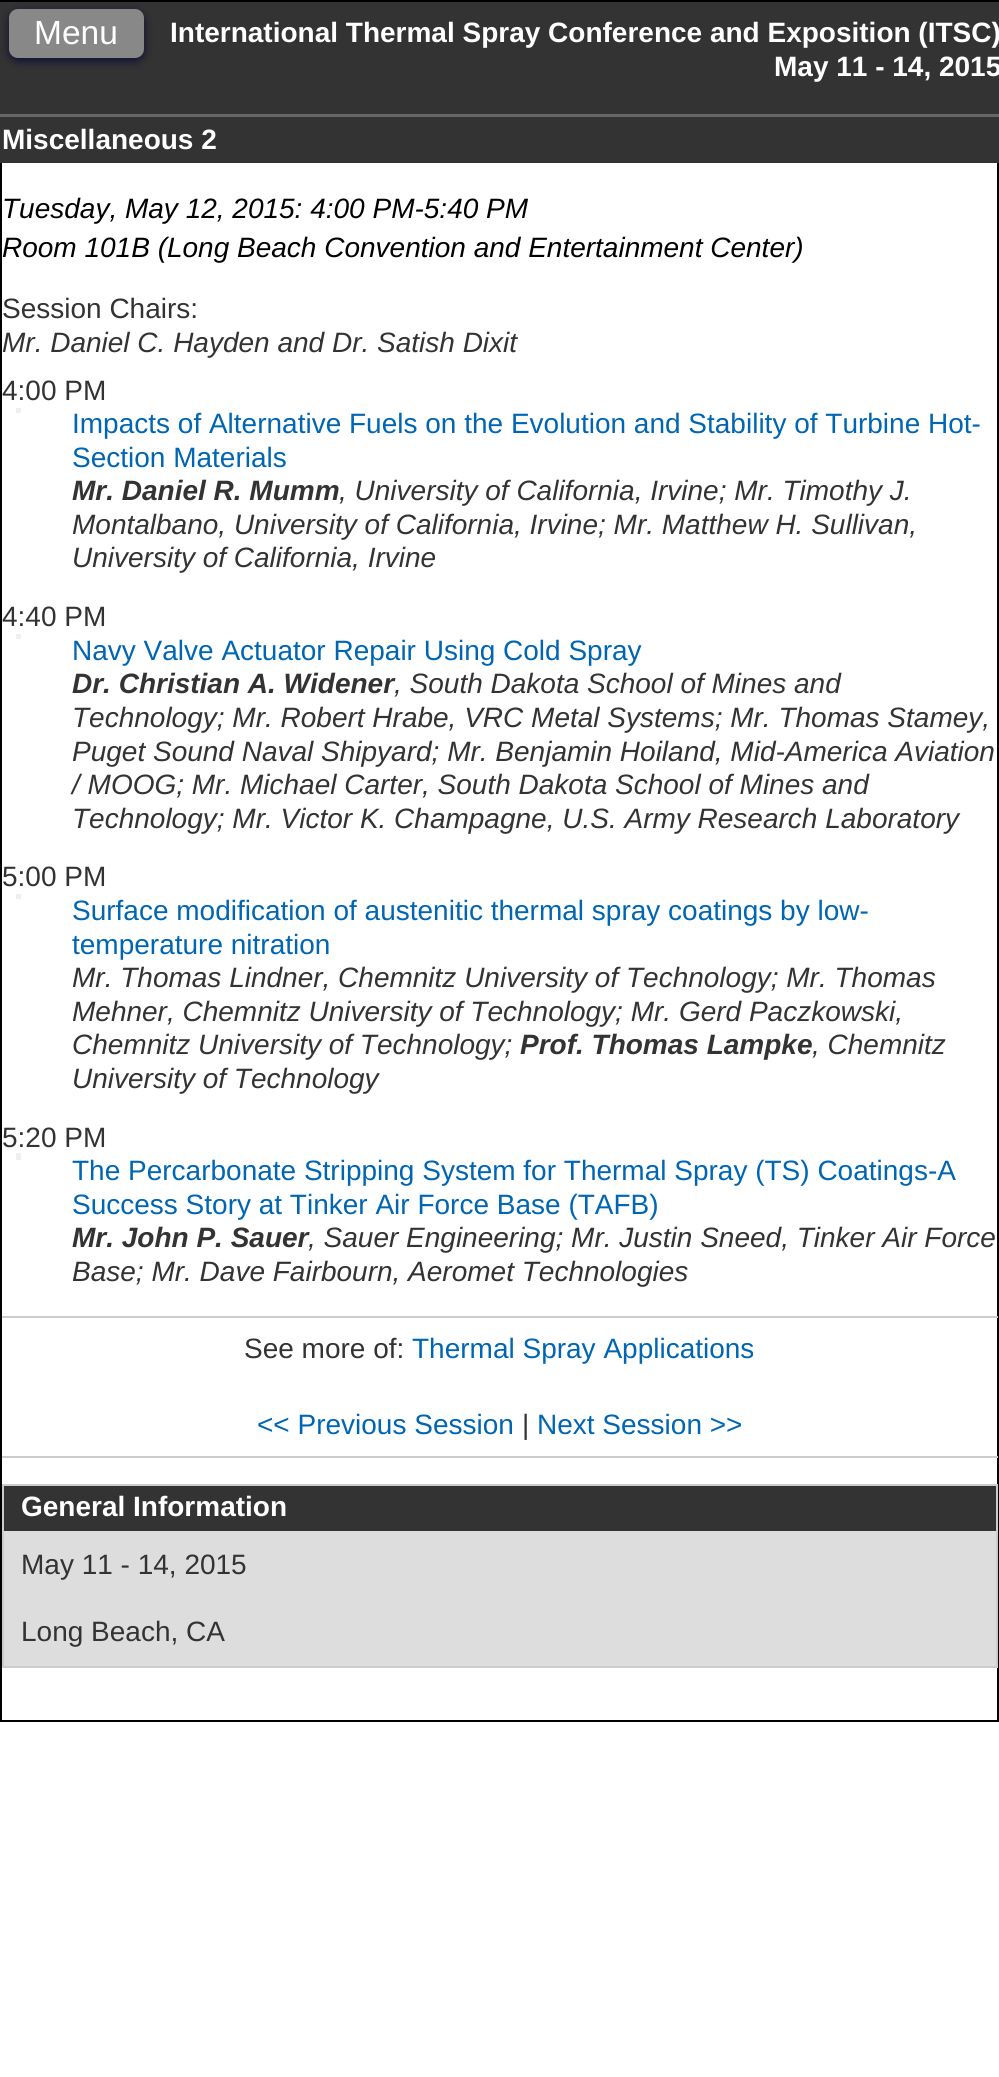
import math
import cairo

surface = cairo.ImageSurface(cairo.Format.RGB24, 999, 2077)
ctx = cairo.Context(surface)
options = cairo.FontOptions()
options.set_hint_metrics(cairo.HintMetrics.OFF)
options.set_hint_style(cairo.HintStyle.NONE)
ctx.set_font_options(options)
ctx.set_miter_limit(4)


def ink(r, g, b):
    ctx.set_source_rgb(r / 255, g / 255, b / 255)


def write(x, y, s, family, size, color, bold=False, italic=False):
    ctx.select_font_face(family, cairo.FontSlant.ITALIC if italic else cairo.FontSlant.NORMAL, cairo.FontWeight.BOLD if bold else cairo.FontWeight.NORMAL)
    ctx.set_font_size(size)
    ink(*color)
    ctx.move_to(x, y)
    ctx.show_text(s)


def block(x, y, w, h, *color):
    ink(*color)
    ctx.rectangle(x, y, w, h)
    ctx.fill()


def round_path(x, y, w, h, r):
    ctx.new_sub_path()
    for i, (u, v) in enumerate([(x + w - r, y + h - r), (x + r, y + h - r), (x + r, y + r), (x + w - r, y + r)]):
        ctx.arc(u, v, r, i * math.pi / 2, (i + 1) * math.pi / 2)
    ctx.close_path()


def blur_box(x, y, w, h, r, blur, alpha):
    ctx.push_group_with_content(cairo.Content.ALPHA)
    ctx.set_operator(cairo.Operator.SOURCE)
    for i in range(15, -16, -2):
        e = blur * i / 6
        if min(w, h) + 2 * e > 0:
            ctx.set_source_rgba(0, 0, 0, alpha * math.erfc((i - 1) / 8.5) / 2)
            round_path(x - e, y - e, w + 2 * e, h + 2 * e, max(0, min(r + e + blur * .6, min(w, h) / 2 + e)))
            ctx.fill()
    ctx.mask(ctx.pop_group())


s1 = dict(family="Liberation Sans", size=33.5, color=(255, 255, 255))
s2 = dict(family="Liberation Sans", size=28, color=(255, 255, 255), bold=True)
s3 = dict(family="Liberation Sans", size=28, color=(0, 0, 0), italic=True)
s4 = dict(family="Liberation Sans", size=28, color=(51, 51, 51))
s5 = dict(family="Liberation Sans", size=28, color=(51, 51, 51), italic=True)
s6 = dict(family="Liberation Sans", size=28, color=(0, 102, 179))
s7 = dict(family="Liberation Sans", size=28, color=(51, 51, 51), bold=True, italic=True)

ink(255, 255, 255)
ctx.paint()
ctx.rectangle(1, 1, 997, 1720)
ink(0, 0, 0)
ctx.stroke()
block(0, 2, 999, 112, 51, 51, 51)
block(0, 114, 999, 3, 102, 102, 102)
ink(0, 0, 51)
blur_box(9, 12, 135, 49, 9, 4.5, 0.75)
ink(136, 136, 136)
round_path(9, 9, 135, 49, 9)
ctx.fill()
write(34, 44, "Menu", **s1)
write(170, 42, "International Thermal Spray Conference and Exposition (ITSC)", **s2)
write(774, 76, "May 11 - 14, 2015", **s2)
block(0, 117, 999, 46, 51, 51, 51)
write(2, 149, "Miscellaneous 2", **s2)
write(2, 218, "Tuesday, May 12, 2015: 4:00 PM-5:40 PM", **s3)
write(2, 257, "Room 101B (Long Beach Convention and Entertainment Center)", **s3)
write(2, 318, "Session Chairs:", **s4)
write(2, 352, "Mr. Daniel C. Hayden and Dr. Satish Dixit", **s5)
write(2, 400, "4:00 PM", **s4)
block(16, 408, 5, 5, 239, 239, 239)
write(72, 433, "Impacts of Alternative Fuels on the Evolution and Stability of Turbine Hot-", **s6)
write(72, 467, "Section Materials", **s6)
write(72, 500, "Mr. Daniel R. Mumm", **s7)
write(339, 500, ", University of California, Irvine; Mr. Timothy J.", **s5)
write(72, 534, "Montalbano, University of California, Irvine; Mr. Matthew H. Sullivan,", **s5)
write(72, 567, "University of California, Irvine", **s5)
write(2, 626, "4:40 PM", **s4)
block(16, 634, 5, 5, 239, 239, 239)
write(72, 660, "Navy Valve Actuator Repair Using Cold Spray", **s6)
write(72, 693, "Dr. Christian A. Widener", **s7)
write(394, 693, ", South Dakota School of Mines and", **s5)
write(72, 727, "Technology; Mr. Robert Hrabe, VRC Metal Systems; Mr. Thomas Stamey,", **s5)
write(72, 761, "Puget Sound Naval Shipyard; Mr. Benjamin Hoiland, Mid-America Aviation", **s5)
write(72, 794, "/ MOOG; Mr. Michael Carter, South Dakota School of Mines and", **s5)
write(72, 828, "Technology; Mr. Victor K. Champagne, U.S. Army Research Laboratory", **s5)
write(2, 886, "5:00 PM", **s4)
block(16, 894, 5, 5, 239, 239, 239)
write(72, 920, "Surface modification of austenitic thermal spray coatings by low-", **s6)
write(72, 954, "temperature nitration", **s6)
write(72, 987, "Mr. Thomas Lindner, Chemnitz University of Technology; Mr. Thomas", **s5)
write(72, 1021, "Mehner, Chemnitz University of Technology; Mr. Gerd Paczkowski,", **s5)
write(72, 1054, "Chemnitz University of Technology;", **s5)
write(520, 1054, "Prof. Thomas Lampke", **s7)
write(812, 1054, ", Chemnitz", **s5)
write(72, 1088, "University of Technology", **s5)
write(2, 1147, "5:20 PM", **s4)
block(16, 1153, 5, 7, 239, 239, 239)
write(72, 1180, "The Percarbonate Stripping System for Thermal Spray (TS) Coatings-A", **s6)
write(72, 1214, "Success Story at Tinker Air Force Base (TAFB)", **s6)
write(72, 1247, "Mr. John P. Sauer", **s7)
write(308, 1247, ", Sauer Engineering; Mr. Justin Sneed, Tinker Air Force", **s5)
write(72, 1281, "Base; Mr. Dave Fairbourn, Aeromet Technologies", **s5)
block(2, 1316, 996, 2, 204, 204, 204)
write(244, 1358, "See more of:", **s4)
write(412, 1358, "Thermal Spray Applications", **s6)
block(2, 1456, 996, 2, 204, 204, 204)
write(257, 1434, "<< Previous Session", **s6)
write(522, 1434, "|", **s4)
write(537, 1434, "Next Session >>", **s6)
block(4, 1531, 992, 135, 221, 221, 221)
ctx.rectangle(3, 1485, 994, 182)
ink(204, 204, 204)
ctx.stroke()
block(4, 1486, 992, 45, 51, 51, 51)
write(21, 1516, "General Information", **s2)
write(21, 1574, "May 11 - 14, 2015", **s4)
write(21, 1641, "Long Beach, CA", **s4)
surface.write_to_png("screenshot.png")
